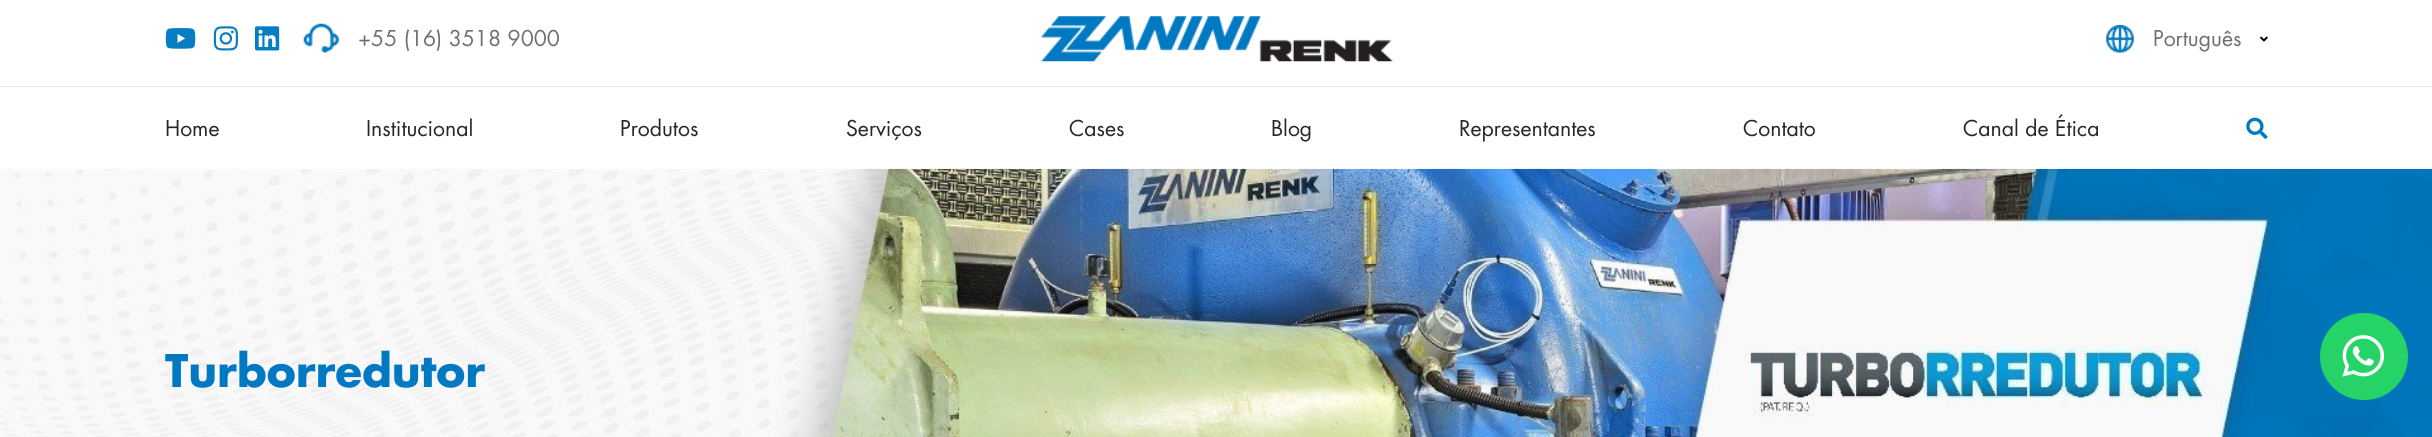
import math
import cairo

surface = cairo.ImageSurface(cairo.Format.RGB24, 2432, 437)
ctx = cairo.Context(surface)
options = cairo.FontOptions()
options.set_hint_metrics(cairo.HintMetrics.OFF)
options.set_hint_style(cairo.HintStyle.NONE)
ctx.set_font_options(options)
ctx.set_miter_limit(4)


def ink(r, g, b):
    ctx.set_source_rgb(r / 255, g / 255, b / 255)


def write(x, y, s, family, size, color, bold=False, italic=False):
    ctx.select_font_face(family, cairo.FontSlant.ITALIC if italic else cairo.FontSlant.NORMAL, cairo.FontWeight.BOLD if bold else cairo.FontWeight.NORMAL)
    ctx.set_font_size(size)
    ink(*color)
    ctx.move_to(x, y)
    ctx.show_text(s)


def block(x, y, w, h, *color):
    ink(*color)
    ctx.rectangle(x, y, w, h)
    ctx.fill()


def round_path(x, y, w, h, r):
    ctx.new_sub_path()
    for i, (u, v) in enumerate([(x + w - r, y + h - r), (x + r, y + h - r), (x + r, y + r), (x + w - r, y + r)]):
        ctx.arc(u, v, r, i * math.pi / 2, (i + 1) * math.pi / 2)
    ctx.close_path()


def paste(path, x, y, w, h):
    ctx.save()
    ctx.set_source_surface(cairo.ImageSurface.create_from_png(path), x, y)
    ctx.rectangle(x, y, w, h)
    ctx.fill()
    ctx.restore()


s1 = dict(family="Futura", size=21.25, color=(112, 112, 112))
s2 = dict(family="Futura", size=21.25, color=(40, 40, 40))
s3 = dict(family="Futura", size=43.75, color=(0, 121, 194), bold=True)

ink(255, 255, 255)
ctx.paint()
block(0, 86, 2432, 1, 232, 232, 232)
paste("pic1.png", 165, 28, 31, 21)
paste("pic2.png", 213, 26, 25, 25)
paste("pic3.png", 255, 26, 25, 25)
paste("pic4.png", 303, 23, 36, 30)
write(358, 46, "+55 (16) 3518 9000", **s1)
paste("pic5.png", 1041, 16, 352, 46)
paste("pic6.png", 2106, 25, 28, 28)
write(2153, 46, "Português", **s1)
paste("pic7.png", 2260, 36, 8, 6)
write(165, 136, "Home", **s2)
write(366, 136, "Institucional", **s2)
write(620, 136, "Produtos", **s2)
write(846, 136, "Serviços", **s2)
write(1069, 136, "Cases", **s2)
write(1271, 136, "Blog", **s2)
write(1459, 136, "Representantes", **s2)
write(1743, 136, "Contato", **s2)
write(1963, 136, "Canal de Ética", **s2)
paste("pic8.png", 2246, 117, 22, 22)
paste("pic9.png", 0, 168, 2432, 269)
write(165, 387, "Turborredutor", **s3)
ink(37, 211, 102)
round_path(2320, 313, 88, 87, 43.5)
ctx.fill()
paste("pic10.png", 2342, 335, 43, 42)
surface.write_to_png("screenshot.png")
